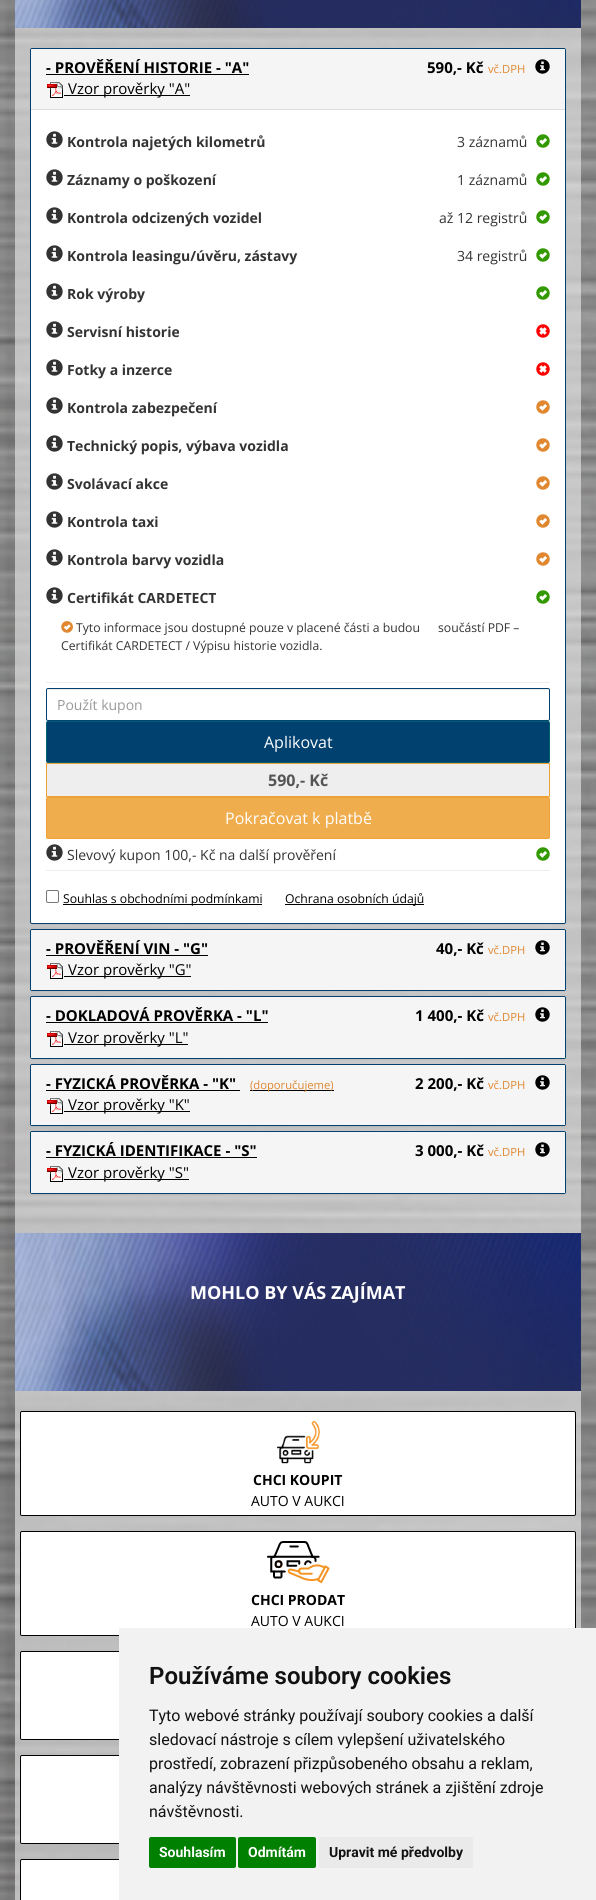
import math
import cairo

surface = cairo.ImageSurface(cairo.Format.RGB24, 596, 1900)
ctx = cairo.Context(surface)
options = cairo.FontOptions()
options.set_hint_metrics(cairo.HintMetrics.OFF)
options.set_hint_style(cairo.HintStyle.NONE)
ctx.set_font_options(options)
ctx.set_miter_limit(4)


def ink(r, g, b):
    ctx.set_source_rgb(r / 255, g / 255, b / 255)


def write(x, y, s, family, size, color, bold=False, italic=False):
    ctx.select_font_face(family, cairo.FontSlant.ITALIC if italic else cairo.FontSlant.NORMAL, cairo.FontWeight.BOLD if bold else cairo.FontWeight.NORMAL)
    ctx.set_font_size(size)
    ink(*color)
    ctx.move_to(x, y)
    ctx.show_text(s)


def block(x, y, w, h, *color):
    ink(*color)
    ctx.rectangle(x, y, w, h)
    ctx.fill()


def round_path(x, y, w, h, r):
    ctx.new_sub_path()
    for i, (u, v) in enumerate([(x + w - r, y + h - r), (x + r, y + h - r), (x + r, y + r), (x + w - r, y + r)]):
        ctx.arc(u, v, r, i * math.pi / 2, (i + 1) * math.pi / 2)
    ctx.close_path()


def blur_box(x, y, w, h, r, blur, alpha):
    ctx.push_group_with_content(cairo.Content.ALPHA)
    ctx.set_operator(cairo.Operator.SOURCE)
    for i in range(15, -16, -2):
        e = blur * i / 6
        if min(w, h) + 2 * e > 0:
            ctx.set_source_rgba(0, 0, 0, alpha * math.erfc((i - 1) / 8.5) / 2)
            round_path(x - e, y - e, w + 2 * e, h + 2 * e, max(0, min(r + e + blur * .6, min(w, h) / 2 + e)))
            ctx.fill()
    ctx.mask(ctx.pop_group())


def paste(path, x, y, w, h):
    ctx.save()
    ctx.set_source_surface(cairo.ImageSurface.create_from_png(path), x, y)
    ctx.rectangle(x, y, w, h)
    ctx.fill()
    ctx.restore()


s1 = dict(family="Open Sans", size=15, color=(0, 0, 0), bold=True)
s2 = dict(family="Open Sans", size=11.25, color=(224, 135, 48))
s3 = dict(family="Open Sans", size=15, color=(0, 0, 0))
s4 = dict(family="Open Sans", size=14, color=(51, 51, 51), bold=True)
s5 = dict(family="Open Sans", size=14, color=(51, 51, 51))
s6 = dict(family="Open Sans", size=12.2, color=(51, 51, 51))
s7 = dict(family="Open Sans", size=14, color=(153, 153, 153))
s8 = dict(family="Open Sans", size=16, color=(255, 255, 255))
s9 = dict(family="Open Sans", size=16, color=(85, 85, 85), bold=True)
s10 = dict(family="Open Sans", size=12.2, color=(0, 0, 0))
s11 = dict(family="Open Sans", size=18, color=(255, 255, 255), bold=True)
s12 = dict(family="Open Sans", size=14, color=(0, 0, 0), bold=True)
s13 = dict(family="Open Sans", size=14, color=(0, 0, 0))
s14 = dict(family="Roboto SemiBold", size=24, color=(17, 17, 17))
s15 = dict(family="Roboto", size=16, color=(17, 17, 17))
s16 = dict(family="Roboto", size=14, color=(255, 255, 255), bold=True)
s17 = dict(family="Roboto", size=14, color=(17, 17, 17), bold=True)

ink(255, 255, 255)
ctx.paint()
paste("pic1.png", 0, 0, 596, 1900)
paste("pic2.png", 15, 0, 566, 28)
ctx.set_source_rgba(0.925, 0.925, 0.925, 0.6)
ctx.rectangle(15, 28, 566, 1205)
ctx.fill()
ink(0, 0, 0)
blur_box(30, 49, 536, 876, 2, 0.5, 0.05)
ink(255, 255, 255)
round_path(30.5, 48.5, 535, 875, 1.5)
ctx.fill_preserve()
ink(0, 65, 112)
ctx.set_line_width(1)
ctx.stroke()
ink(245, 245, 245)
ctx.new_path()
ctx.move_to(32, 49)
ctx.line_to(564, 49)
ctx.curve_to(564.5, 49, 565, 49.5, 565, 50)
ctx.line_to(565, 109)
ctx.line_to(31, 109)
ctx.line_to(31, 50)
ctx.curve_to(31, 49.5, 31.5, 49, 32, 49)
ctx.close_path()
ctx.fill()
write(46, 73, "- PROVĚŘENÍ HISTORIE - \"A\"", **s1)
block(46, 74, 203, 1, 0, 0, 0)
write(427, 73, "590,- Kč", **s1)
write(488, 73, "vč.DPH", **s2)
paste("pic3.png", 535, 59, 15, 15)
paste("pic4.png", 47, 82, 16, 16)
block(64, 95, 126, 1, 0, 0, 0)
write(68, 94, "Vzor prověrky \"A\"", **s3)
block(31, 109, 534, 1, 221, 221, 221)
paste("pic5.png", 46, 131, 17, 17)
write(67, 147, "Kontrola najetých kilometrů", **s4)
write(457, 147, "3 záznamů", **s5)
paste("pic6.png", 536, 134, 14, 14)
paste("pic5.png", 46, 169, 17, 17)
write(67, 185, "Záznamy o poškození", **s4)
write(457, 185, "1 záznamů", **s5)
paste("pic6.png", 536, 172, 14, 14)
paste("pic5.png", 46, 207, 17, 17)
write(67, 223, "Kontrola odcizených vozidel", **s4)
write(439, 223, "až 12 registrů", **s5)
paste("pic6.png", 536, 210, 14, 14)
paste("pic5.png", 46, 245, 17, 17)
write(67, 261, "Kontrola leasingu/úvěru, zástavy", **s4)
write(457, 261, "34 registrů", **s5)
paste("pic6.png", 536, 248, 14, 14)
paste("pic5.png", 46, 283, 17, 17)
write(67, 299, "Rok výroby", **s4)
paste("pic6.png", 536, 286, 14, 14)
paste("pic5.png", 46, 321, 17, 17)
write(67, 337, "Servisní historie", **s4)
paste("pic7.png", 536, 324, 14, 14)
paste("pic5.png", 46, 359, 17, 17)
write(67, 375, "Fotky a inzerce", **s4)
paste("pic7.png", 536, 362, 14, 14)
paste("pic5.png", 46, 397, 17, 17)
write(67, 413, "Kontrola zabezpečení", **s4)
paste("pic8.png", 536, 400, 14, 14)
paste("pic5.png", 46, 435, 17, 17)
write(67, 451, "Technický popis, výbava vozidla", **s4)
paste("pic8.png", 536, 438, 14, 14)
paste("pic5.png", 46, 473, 17, 17)
write(67, 489, "Svolávací akce", **s4)
paste("pic8.png", 536, 476, 14, 14)
paste("pic5.png", 46, 511, 17, 17)
write(67, 527, "Kontrola taxi", **s4)
paste("pic8.png", 536, 514, 14, 14)
paste("pic5.png", 46, 549, 17, 17)
write(67, 565, "Kontrola barvy vozidla", **s4)
paste("pic8.png", 536, 552, 14, 14)
paste("pic5.png", 46, 587, 17, 17)
write(67, 603, "Certifikát CARDETECT", **s4)
paste("pic6.png", 536, 590, 14, 14)
paste("pic9.png", 61, 621, 12, 12)
write(76, 632, "Tyto informace jsou dostupné pouze v placené části a budou", **s6)
write(438, 632, "součástí PDF –", **s6)
write(61, 650, "Certifikát CARDETECT / Výpisu historie vozidla.", **s6)
block(46, 682, 504, 1, 238, 238, 238)
ink(236, 236, 236)
ctx.new_path()
ctx.move_to(48, 690)
ctx.line_to(548, 690)
ctx.curve_to(549, 690, 549, 690, 549, 691)
ctx.curve_to(549, 690, 549, 689, 548, 689)
ctx.line_to(48, 689)
ctx.line_to(47, 690)
ctx.line_to(47, 691)
ctx.curve_to(47, 690, 47, 690, 48, 690)
ctx.close_path()
ctx.fill()
round_path(46.5, 688.5, 503, 32, 1.5)
ink(0, 65, 112)
ctx.stroke()
write(57, 710, "Použít kupon", **s7)
ink(0, 65, 112)
round_path(46.5, 721.5, 503, 41, 1.5)
ctx.fill_preserve()
ink(0, 97, 114)
ctx.stroke()
write(264, 748, "Aplikovat", **s8)
ink(238, 238, 238)
ctx.rectangle(46.5, 763.5, 503, 33)
ctx.fill_preserve()
ink(238, 162, 54)
ctx.stroke()
write(268, 786, "590,- Kč", **s9)
ink(240, 173, 78)
round_path(46.5, 797.5, 503, 41, 1.5)
ctx.fill_preserve()
ink(238, 162, 54)
ctx.stroke()
write(225, 824, "Pokračovat k platbě", **s8)
paste("pic5.png", 46, 844, 17, 17)
write(67, 860, "Slevový kupon 100,- Kč na další prověření", **s5)
paste("pic6.png", 536, 847, 14, 14)
block(46, 870, 504, 1, 238, 238, 238)
round_path(46.5, 890.5, 12, 12, 1.5)
ink(118, 118, 118)
ctx.stroke()
block(63, 904, 199, 1, 0, 0, 0)
write(63, 903, "Souhlas s obchodními podmínkami", **s10)
block(285, 904, 139, 1, 0, 0, 0)
write(285, 903, "Ochrana osobních údajů", **s10)
ink(0, 0, 0)
blur_box(30, 930, 536, 62, 2, 0.5, 0.05)
round_path(30.5, 929.5, 535, 61, 1.5)
ink(0, 65, 112)
ctx.stroke()
ink(245, 245, 245)
ctx.new_path()
ctx.move_to(32, 930)
ctx.line_to(564, 930)
ctx.curve_to(564.5, 930, 565, 930.5, 565, 931)
ctx.line_to(565, 990)
ctx.line_to(31, 990)
ctx.line_to(31, 931)
ctx.curve_to(31, 930.5, 31.5, 930, 32, 930)
ctx.close_path()
ctx.fill()
write(46, 954, "- PROVĚŘENÍ VIN - \"G\"", **s1)
block(46, 955, 162, 1, 0, 0, 0)
write(436, 954, "40,- Kč", **s1)
write(488, 954, "vč.DPH", **s2)
paste("pic3.png", 535, 940, 15, 15)
paste("pic4.png", 47, 963, 16, 16)
block(64, 976, 127, 1, 0, 0, 0)
write(68, 975, "Vzor prověrky \"G\"", **s3)
ink(0, 0, 0)
blur_box(30, 997, 536, 63, 2, 0.5, 0.05)
round_path(30.5, 996.5, 535, 62, 1.5)
ink(0, 65, 112)
ctx.stroke()
ink(245, 245, 245)
ctx.new_path()
ctx.move_to(32, 997)
ctx.line_to(564, 997)
ctx.curve_to(564.5, 997, 565, 997.5, 565, 998)
ctx.line_to(565, 1058)
ctx.line_to(31, 1058)
ctx.line_to(31, 998)
ctx.curve_to(31, 997.5, 31.5, 997, 32, 997)
ctx.close_path()
ctx.fill()
write(46, 1021, "- DOKLADOVÁ PROVĚRKA - \"L\"", **s1)
block(46, 1022, 222, 1, 0, 0, 0)
write(415, 1021, "1 400,- Kč", **s1)
write(488, 1021, "vč.DPH", **s2)
paste("pic3.png", 535, 1007, 15, 15)
paste("pic4.png", 47, 1031, 16, 16)
block(64, 1044, 124, 1, 0, 0, 0)
write(68, 1043, "Vzor prověrky \"L\"", **s3)
ink(0, 0, 0)
blur_box(30, 1065, 536, 62, 2, 0.5, 0.05)
round_path(30.5, 1064.5, 535, 61, 1.5)
ink(0, 65, 112)
ctx.stroke()
ink(245, 245, 245)
ctx.new_path()
ctx.move_to(32, 1065)
ctx.line_to(564, 1065)
ctx.curve_to(564.5, 1065, 565, 1065.5, 565, 1066)
ctx.line_to(565, 1125)
ctx.line_to(31, 1125)
ctx.line_to(31, 1066)
ctx.curve_to(31, 1065.5, 31.5, 1065, 32, 1065)
ctx.close_path()
ctx.fill()
write(46, 1089, "- FYZICKÁ PROVĚRKA - \"K\"", **s1)
block(46, 1090, 194, 1, 0, 0, 0)
block(250, 1090, 84, 1, 0, 0, 0)
write(250, 1089, "(doporučujeme)", **s2)
write(415, 1089, "2 200,- Kč", **s1)
write(488, 1089, "vč.DPH", **s2)
paste("pic3.png", 535, 1075, 15, 15)
paste("pic4.png", 47, 1098, 16, 16)
block(64, 1111, 126, 1, 0, 0, 0)
write(68, 1110, "Vzor prověrky \"K\"", **s3)
ink(0, 0, 0)
blur_box(30, 1132, 536, 63, 2, 0.5, 0.05)
round_path(30.5, 1131.5, 535, 62, 1.5)
ink(0, 65, 112)
ctx.stroke()
ink(245, 245, 245)
ctx.new_path()
ctx.move_to(32, 1132)
ctx.line_to(564, 1132)
ctx.curve_to(564.5, 1132, 565, 1132.5, 565, 1133)
ctx.line_to(565, 1193)
ctx.line_to(31, 1193)
ctx.line_to(31, 1133)
ctx.curve_to(31, 1132.5, 31.5, 1132, 32, 1132)
ctx.close_path()
ctx.fill()
write(46, 1156, "- FYZICKÁ IDENTIFIKACE - \"S\"", **s1)
block(46, 1157, 211, 1, 0, 0, 0)
write(415, 1156, "3 000,- Kč", **s1)
write(488, 1156, "vč.DPH", **s2)
paste("pic3.png", 535, 1142, 15, 15)
paste("pic4.png", 47, 1166, 16, 16)
block(64, 1179, 125, 1, 0, 0, 0)
write(68, 1178, "Vzor prověrky \"S\"", **s3)
paste("pic10.png", 15, 1233, 566, 158)
write(190, 1299, "MOHLO BY VÁS ZAJÍMAT", **s11)
ctx.set_source_rgba(0.925, 0.925, 0.925, 0.6)
ctx.rectangle(15, 1391, 566, 509)
ctx.fill()
ink(255, 255, 255)
round_path(20.5, 1411.5, 555, 104, 1.5)
ctx.fill_preserve()
ink(0, 0, 0)
ctx.stroke()
paste("pic11.png", 277, 1421, 43, 43)
write(253, 1485, "CHCI KOUPIT", **s12)
write(251, 1506, "AUTO V AUKCI", **s13)
ink(255, 255, 255)
round_path(20.5, 1531.5, 555, 104, 1.5)
ctx.fill_preserve()
ink(0, 0, 0)
ctx.stroke()
paste("pic12.png", 267, 1541, 63, 43)
write(251, 1605, "CHCI PRODAT", **s12)
write(251, 1626, "AUTO V AUKCI", **s13)
ink(255, 255, 255)
round_path(20.5, 1651.5, 555, 88, 1.5)
ctx.fill_preserve()
ink(0, 0, 0)
ctx.stroke()
ink(255, 255, 255)
round_path(20.5, 1755.5, 555, 88, 1.5)
ctx.fill_preserve()
ink(0, 0, 0)
ctx.stroke()
ink(255, 255, 255)
round_path(20.5, 1859.5, 555, 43, 1.5)
ctx.fill_preserve()
ink(0, 0, 0)
ctx.stroke()
block(119, 1628, 477, 272, 242, 242, 242)
write(149, 1684, "Používáme soubory cookies", **s14)
write(149, 1721, "Tyto webové stránky používají soubory cookies a další", **s15)
write(149, 1745, "sledovací nástroje s cílem vylepšení uživatelského", **s15)
write(149, 1769, "prostředí, zobrazení přizpůsobeného obsahu a reklam,", **s15)
write(149, 1793, "analýzy návštěvnosti webových stránek a zjištění zdroje", **s15)
write(149, 1817, "návštěvnosti.", **s15)
ink(0, 128, 0)
round_path(149, 1837, 87, 31, 2)
ctx.fill()
write(159, 1857, "Souhlasím", **s16)
ink(0, 128, 0)
round_path(238, 1837, 78, 31, 2)
ctx.fill()
write(248, 1857, "Odmítám", **s16)
ink(234, 234, 234)
round_path(319, 1837, 154, 31, 2)
ctx.fill()
write(329, 1857, "Upravit mé předvolby", **s17)
surface.write_to_png("screenshot.png")
